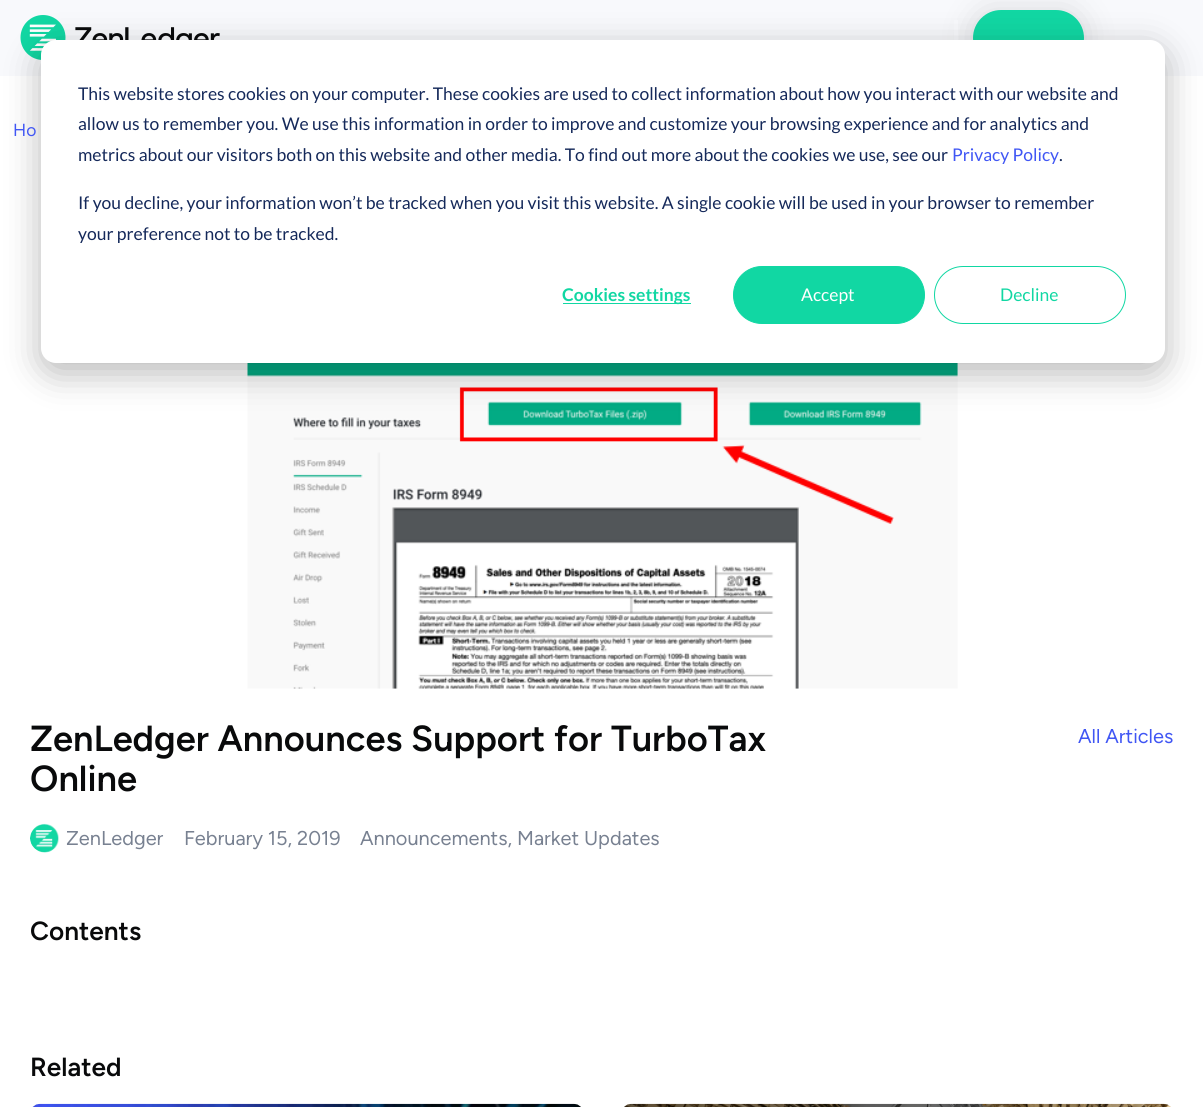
import math
import cairo

surface = cairo.ImageSurface(cairo.Format.RGB24, 1203, 1107)
ctx = cairo.Context(surface)
options = cairo.FontOptions()
options.set_hint_metrics(cairo.HintMetrics.OFF)
options.set_hint_style(cairo.HintStyle.NONE)
ctx.set_font_options(options)
ctx.set_miter_limit(4)


def ink(r, g, b):
    ctx.set_source_rgb(r / 255, g / 255, b / 255)


def write(x, y, s, family, size, color, bold=False, italic=False):
    ctx.select_font_face(family, cairo.FontSlant.ITALIC if italic else cairo.FontSlant.NORMAL, cairo.FontWeight.BOLD if bold else cairo.FontWeight.NORMAL)
    ctx.set_font_size(size)
    ink(*color)
    ctx.move_to(x, y)
    ctx.show_text(s)


def block(x, y, w, h, *color):
    ink(*color)
    ctx.rectangle(x, y, w, h)
    ctx.fill()


def round_path(x, y, w, h, r):
    ctx.new_sub_path()
    for i, (u, v) in enumerate([(x + w - r, y + h - r), (x + r, y + h - r), (x + r, y + r), (x + w - r, y + r)]):
        ctx.arc(u, v, r, i * math.pi / 2, (i + 1) * math.pi / 2)
    ctx.close_path()


def blur_box(x, y, w, h, r, blur, alpha):
    ctx.push_group_with_content(cairo.Content.ALPHA)
    ctx.set_operator(cairo.Operator.SOURCE)
    for i in range(15, -16, -2):
        e = blur * i / 6
        if min(w, h) + 2 * e > 0:
            ctx.set_source_rgba(0, 0, 0, alpha * math.erfc((i - 1) / 8.5) / 2)
            round_path(x - e, y - e, w + 2 * e, h + 2 * e, max(0, min(r + e + blur * .6, min(w, h) / 2 + e)))
            ctx.fill()
    ctx.mask(ctx.pop_group())


def paste(path, x, y, w, h):
    ctx.save()
    ctx.set_source_surface(cairo.ImageSurface.create_from_png(path), x, y)
    ctx.rectangle(x, y, w, h)
    ctx.fill()
    ctx.restore()


s1 = dict(family="Lato", size=17.5, color=(21, 41, 90))
s2 = dict(family="Lato", size=17.5, color=(64, 86, 244))
s3 = dict(family="Lato", size=17.5, color=(17, 215, 163), bold=True)
s4 = dict(family="Lato", size=17.5, color=(255, 255, 255))
s5 = dict(family="Lato", size=17.5, color=(17, 215, 163))
s6 = dict(family="Figtree Light", size=17.5, color=(64, 86, 244))
s7 = dict(family="Figtree SemiBold", size=36.25, color=(9, 10, 11))
s8 = dict(family="Figtree Light", size=20, color=(120, 129, 145))
s9 = dict(family="Figtree Light", size=20, color=(64, 86, 244))
s10 = dict(family="Figtree SemiBold", size=26.25, color=(9, 10, 11))

ink(255, 255, 255)
ctx.paint()
block(0, 0, 1203, 76, 248, 249, 252)
paste("pic1.png", 20, 15, 200, 45)
ink(0, 0, 0)
blur_box(973, 10, 111, 56, 28, 17, 0.12)
ink(17, 215, 163)
round_path(973, 10, 111, 56, 28)
ctx.fill()
block(954, 20, 4, 20, 248, 249, 252)
paste("pic2.png", 247, 363, 711, 326)
ink(0, 0, 0)
blur_box(41, 50, 1124, 323, 15, 17.5, 0.28)
ink(255, 255, 255)
round_path(41, 40, 1124, 323, 15)
ctx.fill()
write(78, 100, "This website stores cookies on your computer. These cookies are used to collect information about how you interact with our website and", **s1)
write(78, 130, "allow us to remember you. We use this information in order to improve and customize your browsing experience and for analytics and", **s1)
write(78, 161, "metrics about our visitors both on this website and other media. To find out more about the cookies we use, see our", **s1)
write(952, 161, "Privacy Policy", **s2)
write(1059, 161, ".", **s1)
write(78, 209, "If you decline, your information won’t be tracked when you visit this website. A single cookie will be used in your browser to remember", **s1)
write(78, 240, "your preference not to be tracked.", **s1)
block(563, 303, 128, 1, 17, 215, 163)
write(562, 301, "Cookies settings", **s3)
round_path(733.5, 266.5, 191, 57, 28.5)
ctx.fill_preserve()
ctx.set_line_width(1)
ctx.stroke()
write(801, 301, "Accept", **s4)
round_path(934.5, 266.5, 191, 57, 28.5)
ink(17, 215, 163)
ctx.stroke()
write(1000, 301, "Decline", **s5)
write(13, 136, "Ho", **s6)
write(30, 751, "ZenLedger Announces Support for TurboTax", **s7)
write(30, 791, "Online", **s7)
paste("pic3.png", 30, 823, 29, 30)
write(66, 845, "ZenLedger", **s8)
write(184, 845, "February 15, 2019", **s8)
write(360, 845, "Announcements, Market Updates", **s8)
write(1078, 743, "All Articles", **s9)
write(30, 940, "Contents", **s10)
write(30, 1076, "Related", **s10)
paste("pic4.png", 32, 1103, 549, 4)
paste("pic5.png", 624, 1103, 547, 4)
surface.write_to_png("screenshot.png")
